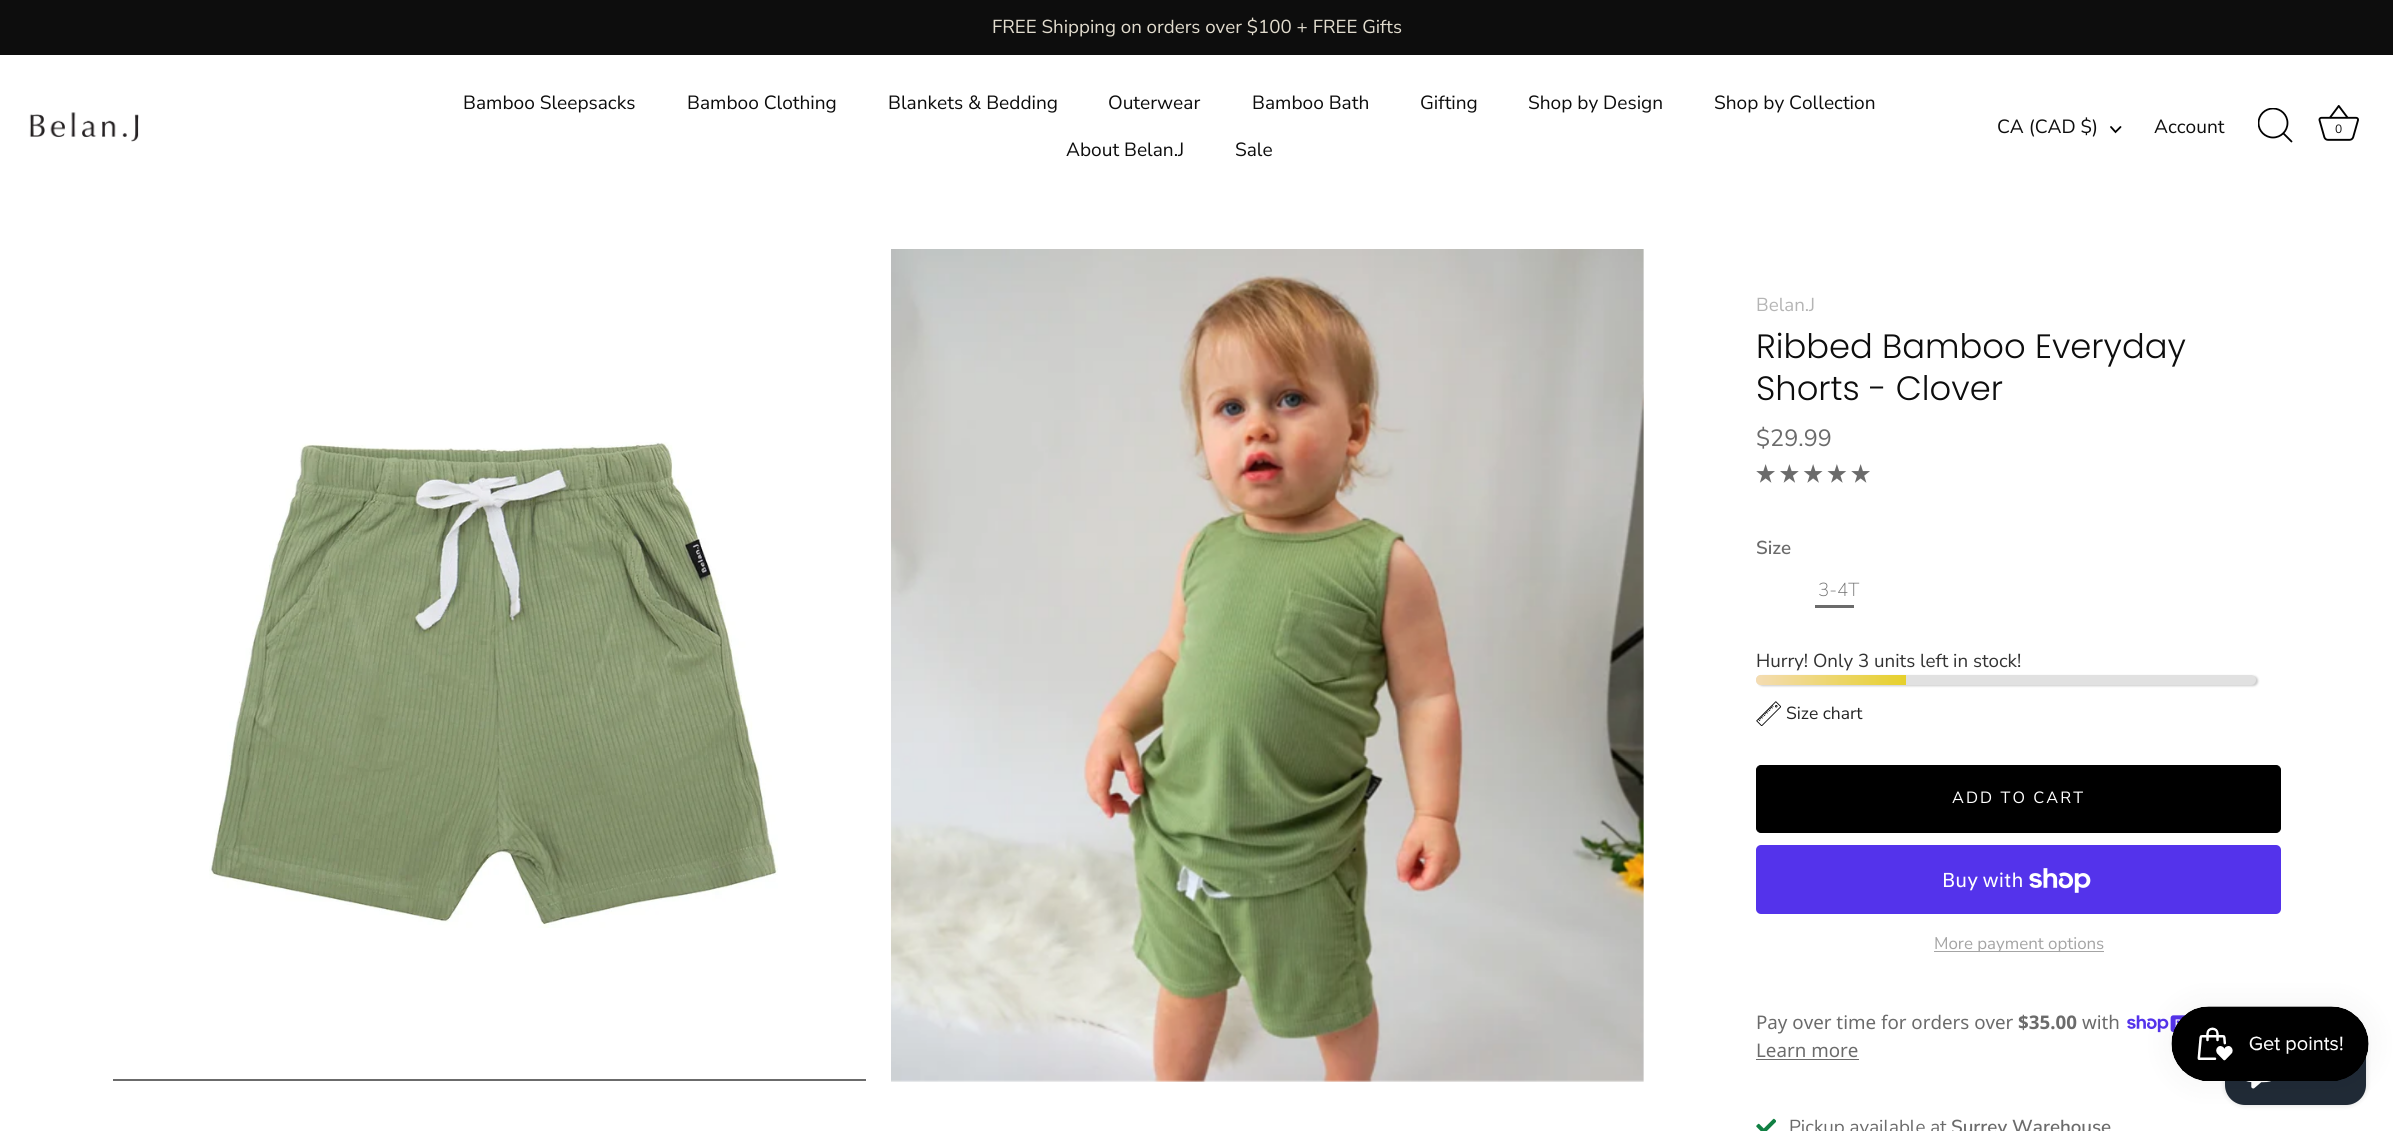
import math
import cairo

surface = cairo.ImageSurface(cairo.Format.RGB24, 2393, 1131)
ctx = cairo.Context(surface)
options = cairo.FontOptions()
options.set_hint_metrics(cairo.HintMetrics.OFF)
options.set_hint_style(cairo.HintStyle.NONE)
ctx.set_font_options(options)
ctx.set_miter_limit(4)


def ink(r, g, b):
    ctx.set_source_rgb(r / 255, g / 255, b / 255)


def write(x, y, s, family, size, color, bold=False, italic=False):
    ctx.select_font_face(family, cairo.FontSlant.ITALIC if italic else cairo.FontSlant.NORMAL, cairo.FontWeight.BOLD if bold else cairo.FontWeight.NORMAL)
    ctx.set_font_size(size)
    ink(*color)
    ctx.move_to(x, y)
    ctx.show_text(s)


def write_spaced(x, y, s, letter, word):
    ctx.move_to(x, y)
    for ch in s:
        ctx.show_text(ch)
        ctx.rel_move_to(letter + word * (ch == ' '), 0)


def block(x, y, w, h, *color):
    ink(*color)
    ctx.rectangle(x, y, w, h)
    ctx.fill()


def round_path(x, y, w, h, r):
    ctx.new_sub_path()
    for i, (u, v) in enumerate([(x + w - r, y + h - r), (x + r, y + h - r), (x + r, y + r), (x + w - r, y + r)]):
        ctx.arc(u, v, r, i * math.pi / 2, (i + 1) * math.pi / 2)
    ctx.close_path()


def blur_box(x, y, w, h, r, blur, alpha):
    ctx.push_group_with_content(cairo.Content.ALPHA)
    ctx.set_operator(cairo.Operator.SOURCE)
    for i in range(15, -16, -2):
        e = blur * i / 6
        if min(w, h) + 2 * e > 0:
            ctx.set_source_rgba(0, 0, 0, alpha * math.erfc((i - 1) / 8.5) / 2)
            round_path(x - e, y - e, w + 2 * e, h + 2 * e, max(0, min(r + e + blur * .6, min(w, h) / 2 + e)))
            ctx.fill()
    ctx.mask(ctx.pop_group())


def paste(path, x, y, w, h):
    ctx.save()
    ctx.set_source_surface(cairo.ImageSurface.create_from_png(path), x, y)
    ctx.rectangle(x, y, w, h)
    ctx.fill()
    ctx.restore()


s1 = dict(family="Nunito Sans", size=18.75, color=(226, 220, 206))
s2 = dict(family="Nunito Sans", size=19.1, color=(13, 13, 13))
s3 = dict(family="Nunito Sans", size=12, color=(13, 13, 13))
s4 = dict(family="Nunito Sans", size=18.75, color=(181, 181, 181))
s5 = dict(family="Poppins Light", size=33.75, color=(13, 13, 13))
s6 = dict(family="Nunito Sans", size=23.5, color=(107, 107, 107))
s7 = dict(family="Nunito Sans SemiBold", size=18.75, color=(107, 107, 107))
s8 = dict(family="Nunito Sans ExtraLight", size=18.75, color=(107, 107, 107))
s9 = dict(family="Nunito Sans", size=18.75, color=(51, 51, 51))
s10 = dict(family="Nunito Sans", size=17.5, color=(35, 35, 35))
s11 = dict(family="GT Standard", size=20, color=(255, 255, 255))
s12 = dict(family="Nunito Sans", size=16.9, color=(164, 164, 164))
s13 = dict(family="Noto Sans", size=18.75, color=(107, 107, 107))
s14 = dict(family="Noto Sans", size=18.75, color=(107, 107, 107), bold=True)
s15 = dict(family="Nunito Sans", size=18.75, color=(107, 107, 107))

ink(255, 255, 255)
ctx.paint()
block(0, 0, 2393, 55, 13, 13, 13)
write(992, 33, "FREE Shipping on orders over $100 + FREE Gifts", **s1)
paste("pic1.png", 29, 112, 110, 30)
write(463, 109, "Bamboo Sleepsacks", **s2)
write(687, 109, "Bamboo Clothing", **s2)
write(888, 109, "Blankets & Bedding", **s2)
write(1108, 109, "Outerwear", **s2)
write(1252, 109, "Bamboo Bath", **s2)
write(1420, 109, "Gifting", **s2)
write(1528, 109, "Shop by Design", **s2)
write(1714, 109, "Shop by Collection", **s2)
write(1066, 156, "About Belan.J", **s2)
write(1235, 156, "Sale", **s2)
write(1997, 133, "CA (CAD $)", **s2)
ctx.new_path()
ctx.move_to(2111, 127)
ctx.line_to(2115.5, 132)
ctx.line_to(2120.5, 127)
ink(0, 0, 0)
ctx.set_line_width(1.8)
ctx.set_line_cap(cairo.LineCap.ROUND)
ctx.stroke()
write(2154, 133, "Account", **s2)
ctx.save()
ctx.rectangle(2258, 108, 36, 36)
ctx.clip()
ctx.arc(2273, 123, 14.5, 0, 2 * math.pi)
ink(0, 0, 0)
ctx.set_line_cap(cairo.LineCap.BUTT)
ctx.stroke()
ctx.restore()
ctx.new_path()
ctx.move_to(2291.5, 141.5)
ctx.line_to(2283.5, 133.5)
ink(0, 0, 0)
ctx.set_line_join(cairo.LineJoin.ROUND)
ctx.stroke()
paste("pic2.png", 2318, 105, 41, 36)
write(2335, 133, "0", **s3)
paste("pic3.png", 209, 442, 569, 486)
block(113, 1079, 753, 2, 107, 107, 107)
paste("pic4.png", 891, 249, 753, 833)
write(1756, 311, "Belan.J", **s4)
write(1756, 358, "Ribbed Bamboo Everyday", **s5)
write(1756, 400, "Shorts - Clover", **s5)
write(1756, 446, "$29.99", **s6)
paste("pic5.png", 1756, 464, 19, 19)
paste("pic6.png", 1780, 464, 19, 19)
paste("pic7.png", 1803, 464, 20, 19)
paste("pic8.png", 1827, 464, 20, 19)
paste("pic5.png", 1851, 464, 19, 19)
write(1756, 554, "Size", **s7)
write(1818, 596, "3-4T", **s8)
block(1815, 605, 39, 3, 107, 107, 107)
write(1756, 667, "Hurry! Only 3 units left in stock!", **s9)
ink(0, 0, 0)
blur_box(1758, 676, 500, 10, 5, 1, 0.2)
ink(225, 225, 225)
round_path(1756, 675, 500, 10, 5)
ctx.fill()
gradient = cairo.LinearGradient(1756, 680, 1906, 680)
gradient.add_color_stop_rgba(0, 0.957, 0.863, 0.702, 1)
gradient.add_color_stop_rgba(1, 0.902, 0.816, 0.169, 1)
ctx.set_source(gradient)
ctx.new_path()
ctx.move_to(1761, 675)
ctx.line_to(1906, 675)
ctx.line_to(1906, 685)
ctx.line_to(1761, 685)
ctx.curve_to(1758, 685, 1756, 683, 1756, 680)
ctx.curve_to(1756, 677, 1758, 675, 1761, 675)
ctx.close_path()
ctx.fill()
paste("pic9.png", 1756, 701, 25, 25)
write(1786, 719, "Size chart", **s10)
ink(0, 0, 0)
round_path(1756.5, 765.5, 524, 67, 4.5)
ctx.fill_preserve()
ctx.set_line_width(1)
ctx.set_line_cap(cairo.LineCap.BUTT)
ctx.set_line_join(cairo.LineJoin.MITER)
ctx.stroke()
ctx.set_font_size(16.25)
ink(255, 255, 255)
write_spaced(1952, 803, "ADD TO CART", 2.1, 0)
ink(84, 51, 235)
round_path(1756, 845, 525, 69, 5)
ctx.fill()
write(1942, 887, "Buy with", **s11)
paste("pic10.png", 2029, 868, 62, 25)
block(1934, 951, 170, 1, 164, 164, 164)
write(1934, 949, "More payment options", **s12)
write(1756, 1029, "Pay over time for orders over", **s13)
write(2018, 1029, "$35.00", **s14)
write(2082, 1029, "with", **s13)
paste("pic11.png", 2127, 1015, 58, 18)
write(1756, 1057, "Learn more", **s13)
block(1756, 1059, 103, 1, 107, 107, 107)
paste("pic12.png", 1756, 1118, 20, 13)
write(1789, 1133, "Pickup available at", **s15)
write(1951, 1133, "Surrey Warehouse", **s7)
ink(0, 0, 0)
blur_box(2225, 1030, 141, 75, 20, 3, 0.15)
ink(32, 42, 54)
round_path(2225, 1030, 141, 75, 20)
ctx.fill()
paste("pic14.png", 2246, 1081, 25, 8)
ink(0, 0, 0)
blur_box(2171, 1006, 198, 75, 37.5, 15.5, 0.05)
paste("pic13.png", 2171, 1006, 198, 75)
surface.write_to_png("screenshot.png")
